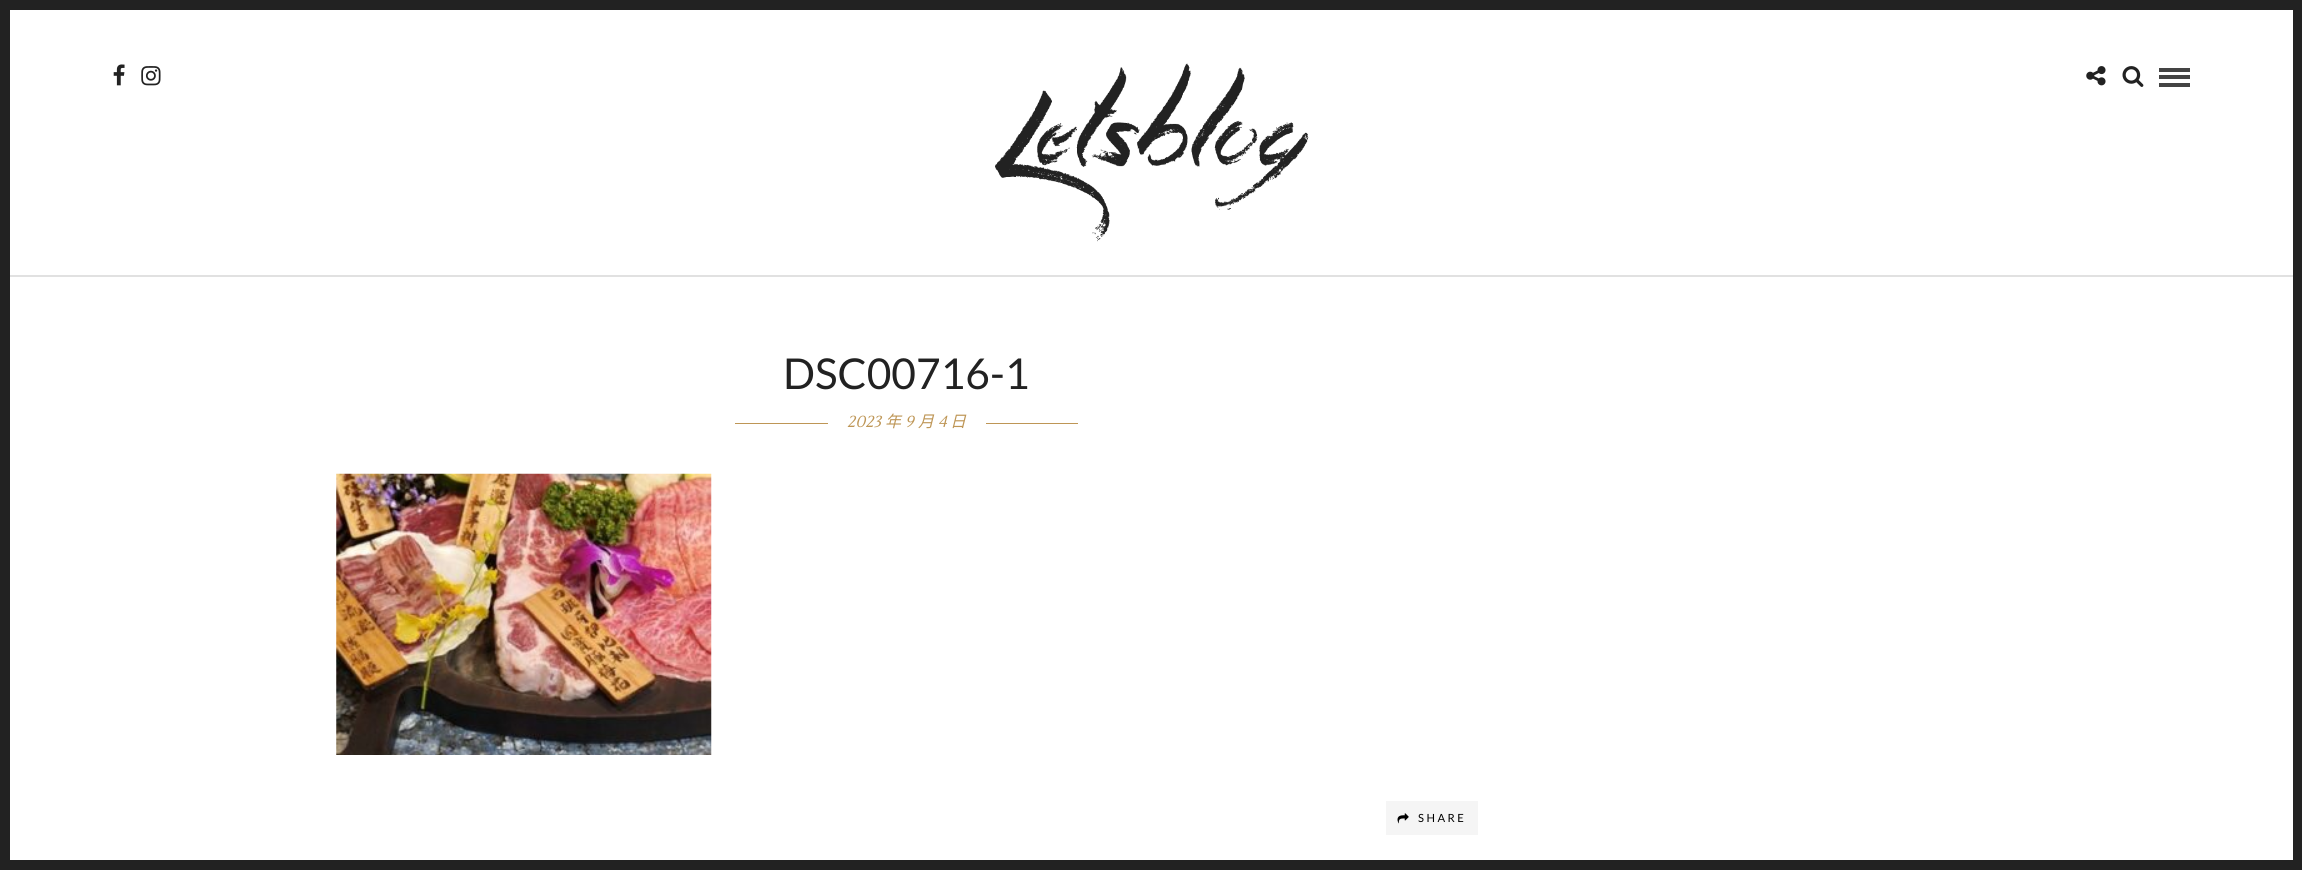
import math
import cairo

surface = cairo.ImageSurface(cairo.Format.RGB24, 2302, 870)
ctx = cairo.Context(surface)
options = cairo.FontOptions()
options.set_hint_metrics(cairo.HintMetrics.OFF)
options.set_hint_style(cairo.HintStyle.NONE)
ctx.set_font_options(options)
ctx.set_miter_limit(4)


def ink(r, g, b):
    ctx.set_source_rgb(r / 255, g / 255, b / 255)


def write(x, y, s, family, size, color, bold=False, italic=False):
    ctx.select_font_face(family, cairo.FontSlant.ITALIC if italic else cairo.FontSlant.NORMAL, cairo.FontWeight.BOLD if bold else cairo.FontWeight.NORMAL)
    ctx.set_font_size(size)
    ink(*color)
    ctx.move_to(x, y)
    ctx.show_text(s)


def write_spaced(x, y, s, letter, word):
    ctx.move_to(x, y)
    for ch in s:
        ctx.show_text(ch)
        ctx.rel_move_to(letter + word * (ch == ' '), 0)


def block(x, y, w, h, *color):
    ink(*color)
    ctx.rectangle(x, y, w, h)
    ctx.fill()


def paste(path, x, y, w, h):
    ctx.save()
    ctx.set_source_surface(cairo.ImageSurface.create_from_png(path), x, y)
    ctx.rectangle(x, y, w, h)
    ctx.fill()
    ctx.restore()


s1 = dict(family="Lato", size=42.5, color=(34, 34, 34))
s2 = dict(family="Lustria", size=16, color=(190, 150, 86), italic=True)
s3 = dict(family="Noto Sans CJK TC", size=16, color=(190, 150, 86), italic=True)

ink(255, 255, 255)
ctx.paint()
block(0, 0, 10, 870, 34, 34, 34)
block(10, 0, 2283, 10, 34, 34, 34)
block(2293, 0, 9, 870, 34, 34, 34)
block(10, 275, 2283, 2, 225, 225, 225)
paste("pic1.png", 113, 64, 12, 22)
paste("pic2.png", 141, 66, 20, 20)
paste("pic3.png", 995, 63, 314, 179)
paste("pic4.png", 2086, 66, 20, 20)
paste("pic5.png", 2122, 66, 22, 21)
block(2159, 68, 31, 4, 68, 68, 68)
block(2159, 75, 31, 4, 68, 68, 68)
block(2159, 83, 31, 4, 68, 68, 68)
write(783, 389, "DSC00716-1", **s1)
block(735, 423, 343, 1, 190, 150, 86)
block(828, 423, 158, 1, 255, 255, 255)
write(847, 427, "2023", **s2)
write(885, 427, "年", **s3)
write(905, 427, "9", **s2)
write(918, 427, "月", **s3)
write(938, 427, "4", **s2)
write(950, 427, "日", **s3)
paste("pic6.png", 336, 473, 376, 282)
block(1386, 801, 92, 34, 245, 245, 245)
paste("pic7.png", 1397, 813, 12, 11)
ctx.select_font_face("Lato")
ctx.set_font_size(11.25)
ink(0, 0, 0)
write_spaced(1418, 822, "SHARE", 2.5, 0)
block(10, 860, 2283, 10, 34, 34, 34)
surface.write_to_png("screenshot.png")
